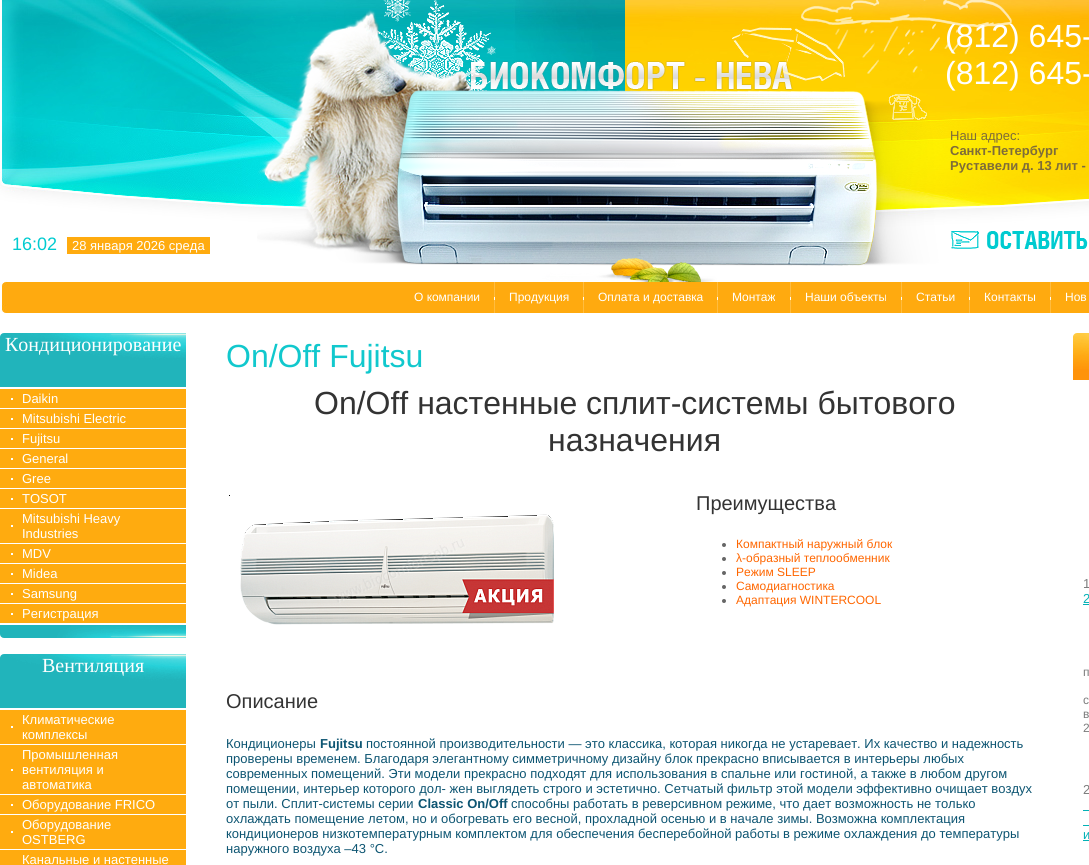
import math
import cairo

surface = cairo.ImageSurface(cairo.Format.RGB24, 1089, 865)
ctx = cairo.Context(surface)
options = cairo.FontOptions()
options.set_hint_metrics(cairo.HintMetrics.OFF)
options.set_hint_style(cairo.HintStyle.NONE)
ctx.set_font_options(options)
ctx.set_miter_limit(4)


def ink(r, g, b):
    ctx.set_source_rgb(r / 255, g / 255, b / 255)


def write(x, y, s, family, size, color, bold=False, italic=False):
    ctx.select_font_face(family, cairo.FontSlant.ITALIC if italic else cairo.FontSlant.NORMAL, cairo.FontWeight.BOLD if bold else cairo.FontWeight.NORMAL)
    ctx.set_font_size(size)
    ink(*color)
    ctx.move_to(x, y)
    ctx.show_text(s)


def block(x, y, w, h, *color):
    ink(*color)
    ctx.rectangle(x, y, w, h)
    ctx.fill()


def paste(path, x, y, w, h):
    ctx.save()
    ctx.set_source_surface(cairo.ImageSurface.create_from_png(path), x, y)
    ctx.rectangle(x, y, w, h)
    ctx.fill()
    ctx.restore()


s1 = dict(family="Liberation Sans", size=32, color=(255, 255, 255))
s2 = dict(family="Liberation Sans", size=13, color=(126, 108, 57))
s3 = dict(family="Liberation Sans", size=13, color=(126, 108, 57), bold=True)
s4 = dict(family="Liberation Sans", size=18, color=(0, 203, 208))
s5 = dict(family="Liberation Sans", size=13, color=(255, 255, 255))
s6 = dict(family="Liberation Sans", size=12, color=(255, 255, 255))
s7 = dict(family="Liberation Serif", size=20, color=(255, 255, 255))
s8 = dict(family="Liberation Sans", size=32, color=(17, 200, 205))
s9 = dict(family="Liberation Sans", size=32, color=(51, 51, 51))
s10 = dict(family="Liberation Sans", size=20, color=(51, 51, 51))
s11 = dict(family="Liberation Sans", size=12, color=(255, 102, 0))
s12 = dict(family="Liberation Sans", size=13, color=(13, 85, 114))
s13 = dict(family="Liberation Sans", size=13, color=(13, 85, 114), bold=True)
s14 = dict(family="Liberation Sans", size=13, color=(123, 123, 123))
s15 = dict(family="Liberation Sans", size=13, color=(3, 177, 182))
s16 = dict(family="Liberation Sans", size=12, color=(123, 123, 123))

ink(255, 255, 255)
ctx.paint()
paste("pic1.png", 0, 0, 625, 313)
paste("pic3.png", 625, 0, 464, 313)
paste("pic2.png", 257, 0, 755, 282)
paste("pic4.png", 888, 94, 39, 26)
write(945, 47, "(812) 645-", **s1)
write(945, 84, "(812) 645-", **s1)
write(950, 140, "Наш адрес:", **s2)
write(950, 155, "Санкт-Петербург", **s3)
write(950, 170, "Руставели д. 13 лит -", **s3)
write(12, 250, "16:02", **s4)
block(67, 237, 143, 17, 255, 171, 15)
write(72, 250, "28 января 2026 среда", **s5)
paste("pic5.png", 951, 231, 137, 18)
write(414, 301, "О компании", **s6)
paste("pic6.png", 494, 282, 1, 31)
write(509, 301, "Продукция", **s6)
paste("pic6.png", 583, 282, 1, 31)
write(598, 301, "Оплата и доставка", **s6)
paste("pic6.png", 717, 282, 1, 31)
write(732, 301, "Монтаж", **s6)
paste("pic6.png", 790, 282, 1, 31)
write(805, 301, "Наши объекты", **s6)
paste("pic6.png", 901, 282, 1, 31)
write(916, 301, "Статьи", **s6)
paste("pic6.png", 969, 282, 1, 31)
write(984, 301, "Контакты", **s6)
paste("pic6.png", 1050, 282, 1, 31)
write(1065, 301, "Нов", **s6)
paste("pic7.png", 0, 333, 186, 54)
write(5, 351, "Кондиционирование", **s7)
block(0, 389, 186, 19, 255, 171, 15)
block(11, 398, 2, 2, 255, 255, 255)
write(22, 403, "Daikin", **s5)
block(0, 409, 186, 19, 255, 171, 15)
block(11, 418, 2, 2, 255, 255, 255)
write(22, 423, "Mitsubishi Electric", **s5)
block(0, 429, 186, 19, 255, 171, 15)
block(11, 438, 2, 2, 255, 255, 255)
write(22, 443, "Fujitsu", **s5)
block(0, 449, 186, 19, 255, 171, 15)
block(11, 458, 2, 2, 255, 255, 255)
write(22, 463, "General", **s5)
block(0, 469, 186, 19, 255, 171, 15)
block(11, 478, 2, 2, 255, 255, 255)
write(22, 483, "Gree", **s5)
block(0, 489, 186, 19, 255, 171, 15)
block(11, 498, 2, 2, 255, 255, 255)
write(22, 503, "TOSOT", **s5)
block(0, 509, 186, 34, 255, 171, 15)
block(11, 525, 2, 2, 255, 255, 255)
write(22, 523, "Mitsubishi Heavy", **s5)
write(22, 538, "Industries", **s5)
block(0, 544, 186, 19, 255, 171, 15)
block(11, 553, 2, 2, 255, 255, 255)
write(22, 558, "MDV", **s5)
block(0, 564, 186, 19, 255, 171, 15)
block(11, 573, 2, 2, 255, 255, 255)
write(22, 578, "Midea", **s5)
block(0, 584, 186, 19, 255, 171, 15)
block(11, 593, 2, 2, 255, 255, 255)
write(22, 598, "Samsung", **s5)
block(0, 604, 186, 19, 255, 171, 15)
block(11, 613, 2, 2, 255, 255, 255)
write(22, 618, "Регистрация", **s5)
paste("pic8.png", 0, 625, 186, 13)
paste("pic7.png", 0, 654, 186, 54)
write(42, 672, "Вентиляция", **s7)
block(0, 710, 186, 34, 255, 171, 15)
block(11, 726, 2, 2, 255, 255, 255)
write(22, 724, "Климатические", **s5)
write(22, 739, "комплексы", **s5)
block(0, 745, 186, 49, 255, 171, 15)
block(11, 769, 2, 2, 255, 255, 255)
write(22, 759, "Промышленная", **s5)
write(22, 774, "вентиляция и", **s5)
write(22, 789, "автоматика", **s5)
block(0, 795, 186, 19, 255, 171, 15)
block(11, 804, 2, 2, 255, 255, 255)
write(22, 809, "Оборудование FRICO", **s5)
block(0, 815, 186, 34, 255, 171, 15)
block(11, 831, 2, 2, 255, 255, 255)
write(22, 829, "Оборудование", **s5)
write(22, 844, "OSTBERG", **s5)
block(0, 850, 186, 15, 255, 171, 15)
write(22, 864, "Канальные и настенные", **s5)
write(226, 367, "On/Off Fujitsu", **s8)
write(314, 414, "On/Off настенные сплит-системы бытового", **s9)
write(548, 451, "назначения", **s9)
paste("pic9.png", 229, 495, 325, 130)
write(696, 510, "Преимущества", **s10)
ink(102, 102, 102)
ctx.new_path()
ctx.arc(724, 545, 2, 0, 2 * math.pi)
ctx.fill()
write(736, 548, "Компактный наружный блок", **s11)
ink(102, 102, 102)
ctx.new_path()
ctx.arc(724, 559, 2, 0, 2 * math.pi)
ctx.fill()
write(736, 562, "λ-образный теплообменник", **s11)
ink(102, 102, 102)
ctx.new_path()
ctx.arc(724, 573, 2, 0, 2 * math.pi)
ctx.fill()
write(736, 576, "Режим SLEEP", **s11)
ink(102, 102, 102)
ctx.new_path()
ctx.arc(724, 587, 2, 0, 2 * math.pi)
ctx.fill()
write(736, 590, "Самодиагностика", **s11)
ink(102, 102, 102)
ctx.new_path()
ctx.arc(724, 601, 2, 0, 2 * math.pi)
ctx.fill()
write(736, 604, "Адаптация WINTERCOOL", **s11)
write(226, 708, "Описание", **s10)
write(226, 748, "Кондиционеры", **s12)
write(320, 748, "Fujitsu", **s13)
write(366, 748, "постоянной производительности — это классика, которая никогда не устаревает. Их качество и надежность", **s12)
write(226, 763, "проверены временем. Благодаря элегантному симметричному дизайну блок прекрасно вписывается в интерьеры любых", **s12)
write(226, 778, "современных помещений. Эти модели прекрасно подходят для использования в спальне или гостиной, а также в любом другом", **s12)
write(226, 793, "помещении, интерьер которого дол- жен выглядеть строго и эстетично. Сетчатый фильтр этой модели эффективно очищает воздух", **s12)
write(226, 808, "от пыли. Сплит-системы серии", **s12)
write(418, 808, "Classic On/Off", **s13)
write(511, 808, "способны работать в реверсивном режиме, что дает возможность не только", **s12)
write(226, 823, "охлаждать помещение летом, но и обогревать его весной, прохладной осенью и в начале зимы. Возможна комплектация", **s12)
write(226, 838, "кондиционеров низкотемпературным комплектом для обеспечения бесперебойной работы в режиме охлаждения до температуры", **s12)
write(226, 853, "наружного воздуха –43 °C.", **s12)
block(1073, 369, 16, 11, 255, 147, 10)
paste("pic10.png", 1073, 333, 16, 36)
write(1083, 588, "1", **s14)
write(1083, 603, "2", **s15)
block(1083, 604, 6, 1, 3, 177, 182)
write(1083, 676, "п", **s16)
write(1083, 704, "с", **s16)
write(1083, 718, "в", **s16)
write(1083, 732, "2", **s16)
write(1083, 794, "2", **s14)
write(1083, 839, "и", **s15)
block(1083, 810, 6, 1, 3, 177, 182)
block(1083, 825, 6, 1, 3, 177, 182)
block(1083, 840, 6, 1, 3, 177, 182)
surface.write_to_png("screenshot.png")
